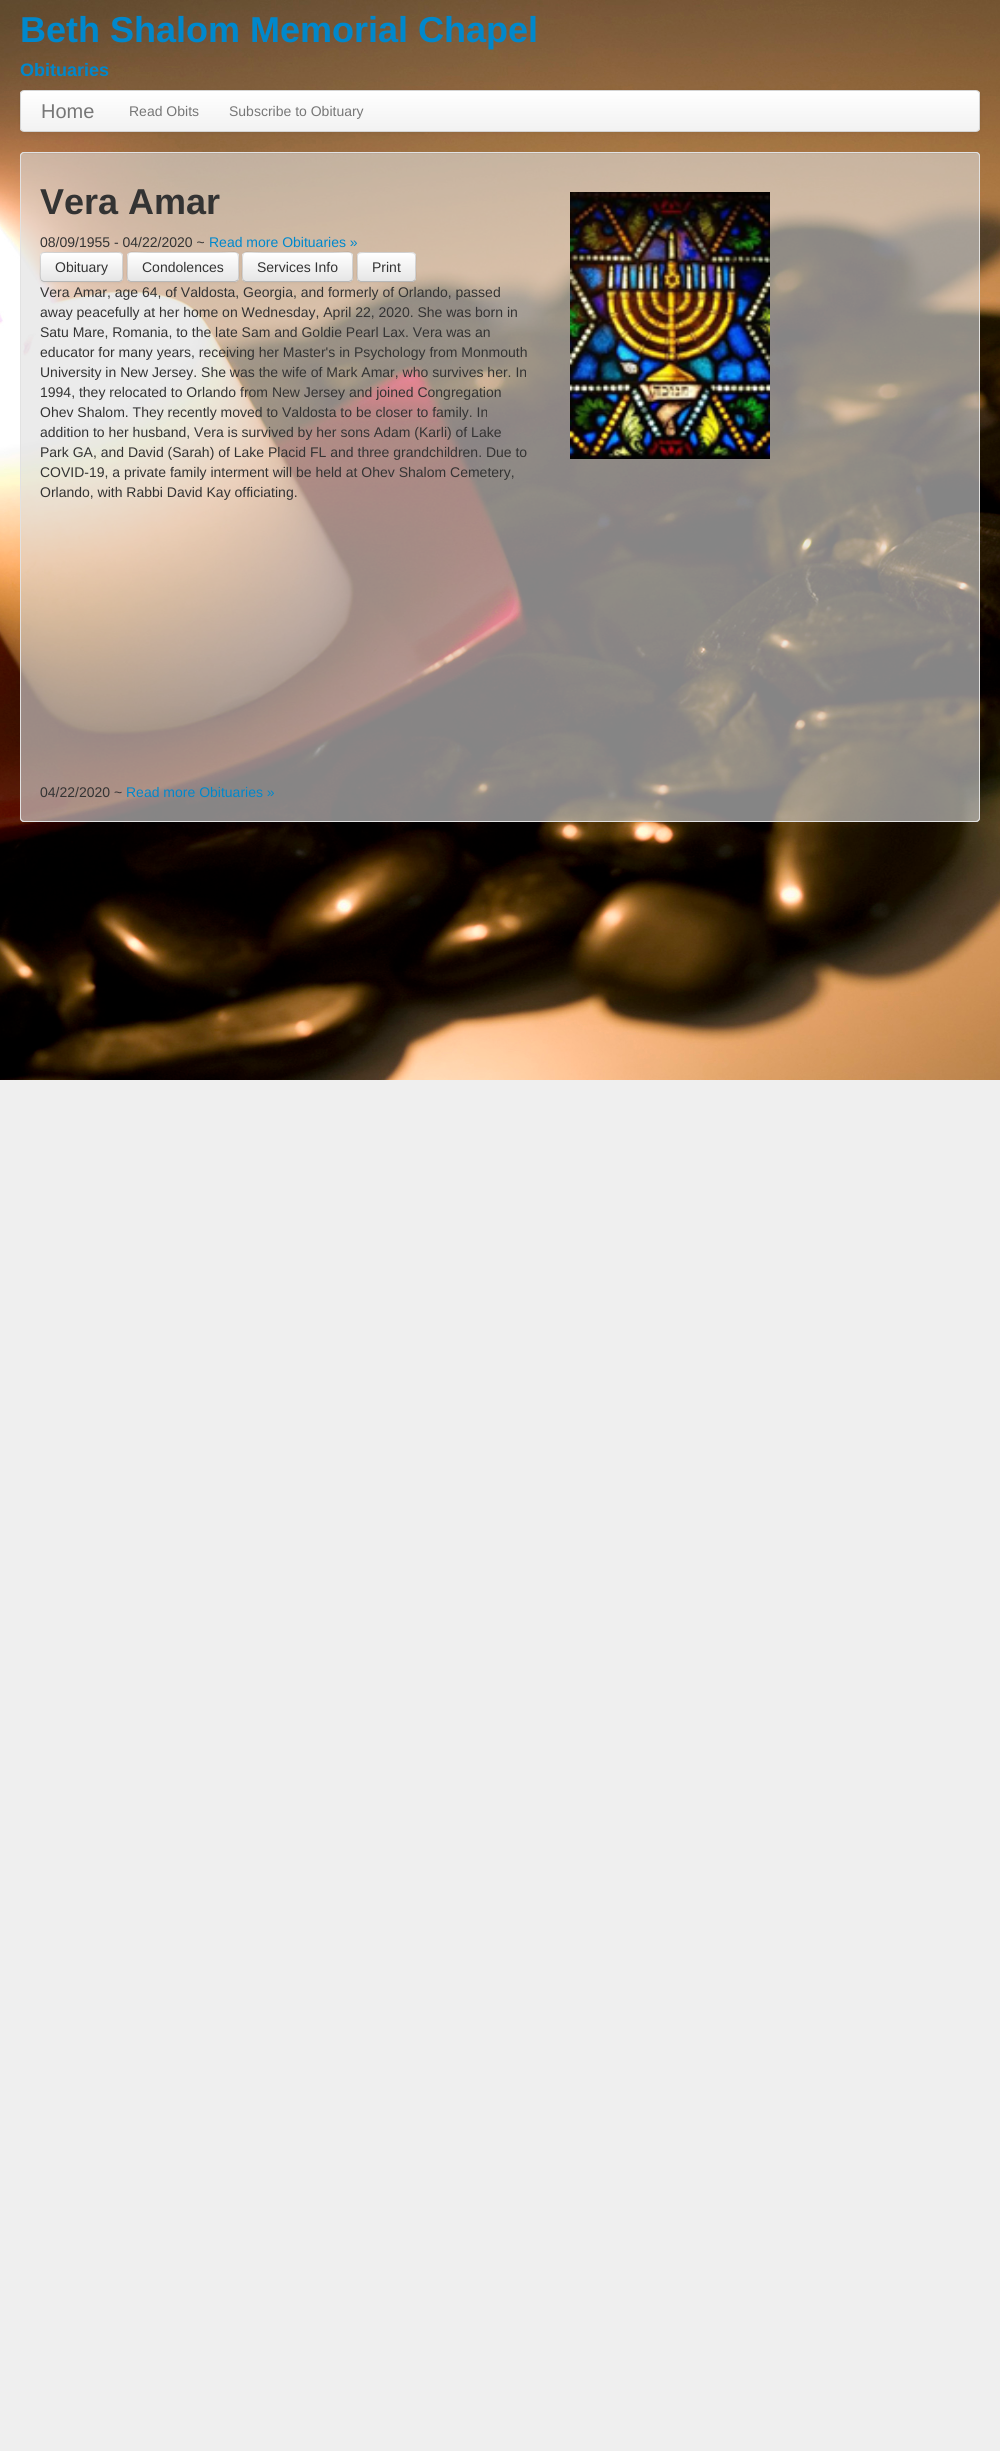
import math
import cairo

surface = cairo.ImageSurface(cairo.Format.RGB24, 1000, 2451)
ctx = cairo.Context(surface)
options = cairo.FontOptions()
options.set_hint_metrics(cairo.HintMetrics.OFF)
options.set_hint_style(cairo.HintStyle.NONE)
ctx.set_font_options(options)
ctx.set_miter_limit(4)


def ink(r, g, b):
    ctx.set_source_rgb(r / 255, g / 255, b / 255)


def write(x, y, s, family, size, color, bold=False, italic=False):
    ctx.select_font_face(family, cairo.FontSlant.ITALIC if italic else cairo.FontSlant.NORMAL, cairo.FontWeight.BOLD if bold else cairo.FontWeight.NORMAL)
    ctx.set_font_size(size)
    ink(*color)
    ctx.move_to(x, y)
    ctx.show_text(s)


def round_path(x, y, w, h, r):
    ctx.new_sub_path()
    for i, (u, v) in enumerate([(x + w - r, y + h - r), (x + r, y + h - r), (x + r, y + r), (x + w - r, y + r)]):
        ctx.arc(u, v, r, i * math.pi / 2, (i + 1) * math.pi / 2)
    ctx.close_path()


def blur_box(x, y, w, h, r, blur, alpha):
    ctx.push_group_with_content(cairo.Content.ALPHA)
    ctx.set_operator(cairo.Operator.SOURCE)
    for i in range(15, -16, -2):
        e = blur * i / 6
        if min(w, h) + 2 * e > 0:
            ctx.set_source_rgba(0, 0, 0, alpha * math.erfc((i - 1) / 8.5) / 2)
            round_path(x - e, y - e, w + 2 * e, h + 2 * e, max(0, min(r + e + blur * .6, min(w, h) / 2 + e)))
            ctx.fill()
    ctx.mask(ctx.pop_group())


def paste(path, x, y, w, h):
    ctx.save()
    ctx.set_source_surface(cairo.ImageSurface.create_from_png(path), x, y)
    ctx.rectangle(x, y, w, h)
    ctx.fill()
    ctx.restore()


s1 = dict(family="Liberation Sans", size=36, color=(0, 136, 204), bold=True)
s2 = dict(family="Liberation Sans", size=18, color=(0, 136, 204), bold=True)
s3 = dict(family="Liberation Sans", size=20, color=(119, 119, 119))
s4 = dict(family="Liberation Sans", size=14, color=(119, 119, 119))
s5 = dict(family="Liberation Sans", size=36, color=(51, 51, 51), bold=True)
s6 = dict(family="Liberation Sans", size=14, color=(51, 51, 51))
s7 = dict(family="Liberation Sans", size=14, color=(0, 136, 204))

ink(239, 239, 239)
ctx.paint()
paste("pic1.png", 0, 0, 1000, 1080)
write(20, 42, "Beth Shalom Memorial Chapel", **s1)
write(20, 76, "Obituaries", **s2)
ink(0, 0, 0)
blur_box(20, 91, 960, 42, 4, 2, 0.07)
ctx.save()
round_path(20, 90, 960, 42, 4)
ctx.clip()
gradient = cairo.LinearGradient(500, 91, 500, 131)
gradient.add_color_stop_rgba(0, 1, 1, 1, 1)
gradient.add_color_stop_rgba(1, 0.949, 0.949, 0.949, 1)
ctx.set_source(gradient)
ctx.rectangle(20, 91, 960, 40)
ctx.fill()
ctx.restore()
round_path(20.5, 90.5, 959, 41, 3.5)
ink(212, 212, 212)
ctx.set_line_width(1)
ctx.stroke()
write(41, 118, "Home", **s3)
write(129, 116, "Read Obits", **s4)
write(229, 116, "Subscribe to Obituary", **s4)
ctx.set_source_rgba(0, 0, 0, 0.05)
ctx.new_path()
ctx.move_to(24, 154)
ctx.line_to(976, 154)
ctx.curve_to(978, 154, 979, 155, 979, 157)
ctx.curve_to(979, 155, 978, 153, 976, 153)
ctx.line_to(24, 153)
ctx.curve_to(22, 153, 21, 155, 21, 157)
ctx.curve_to(21, 155, 22, 154, 24, 154)
ctx.close_path()
ctx.fill()
round_path(20.5, 152.5, 959, 669, 3.5)
ink(227, 227, 227)
ctx.stroke()
ctx.set_source_rgba(0.867, 0.867, 0.867, 0.6)
round_path(20, 152, 960, 670, 4)
ctx.fill()
ctx.set_source_rgba(0, 0, 0, 0.03)
ctx.new_path()
ctx.move_to(24, 154)
ctx.line_to(976, 154)
ctx.curve_to(978, 154, 979, 155, 979, 157)
ctx.curve_to(979, 155, 978, 153, 976, 153)
ctx.line_to(24, 153)
ctx.curve_to(22, 153, 21, 155, 21, 157)
ctx.curve_to(21, 155, 22, 154, 24, 154)
ctx.close_path()
ctx.fill()
round_path(20.5, 152.5, 959, 669, 3.5)
ctx.set_source_rgba(0.89, 0.89, 0.89, 0.6)
ctx.stroke()
write(40, 214, "Vera Amar", **s5)
write(40, 247, "08/09/1955 - 04/22/2020 ~", **s6)
write(209, 247, "Read more Obituaries »", **s7)
paste("pic2.png", 570, 192, 200, 267)
ink(0, 0, 0)
blur_box(40, 253, 83, 30, 4, 1, 0.05)
ink(245, 245, 245)
round_path(40, 252, 83, 30, 4)
ctx.fill()
ctx.save()
round_path(40, 252, 83, 30, 4)
ctx.clip()
gradient = cairo.LinearGradient(82, 253, 82, 281)
gradient.add_color_stop_rgba(0, 1, 1, 1, 1)
gradient.add_color_stop_rgba(1, 0.902, 0.902, 0.902, 1)
ctx.set_source(gradient)
ctx.rectangle(40, 253, 83, 28)
ctx.fill()
ctx.restore()
ctx.new_path()
ctx.move_to(121.5, 280.5)
ctx.line_to(119.5, 281.5)
ctx.line_to(43.5, 281.5)
ctx.line_to(41.5, 280.5)
ctx.set_source_rgba(0, 0, 0, 0.25)
ctx.stroke()
ctx.new_path()
ctx.move_to(41.5, 280.5)
ctx.curve_to(39.5, 278.5, 40.5, 270, 40.5, 267)
ctx.curve_to(40.5, 250, 38.5, 252.5, 56.5, 252.5)
ctx.line_to(106.5, 252.5)
ctx.curve_to(124.5, 252.5, 122.5, 250, 122.5, 267)
ctx.curve_to(122.5, 270, 123.5, 278.5, 121.5, 280.5)
ctx.set_source_rgba(0, 0, 0, 0.15)
ctx.stroke()
write(55, 272, "Obituary", **s6)
ink(0, 0, 0)
blur_box(127, 253, 112, 30, 4, 1, 0.05)
ink(245, 245, 245)
round_path(127, 252, 112, 30, 4)
ctx.fill()
ctx.save()
round_path(127, 252, 112, 30, 4)
ctx.clip()
gradient = cairo.LinearGradient(183, 253, 183, 281)
gradient.add_color_stop_rgba(0, 1, 1, 1, 1)
gradient.add_color_stop_rgba(1, 0.902, 0.902, 0.902, 1)
ctx.set_source(gradient)
ctx.rectangle(127, 253, 112, 28)
ctx.fill()
ctx.restore()
ctx.set_source_rgba(1, 1, 1, 0.2)
ctx.new_path()
ctx.move_to(131, 254)
ctx.line_to(235, 254)
ctx.curve_to(237, 254, 238, 255, 238, 257)
ctx.curve_to(238, 248, 220, 253, 218, 253)
ctx.line_to(148, 253)
ctx.curve_to(146, 253, 128, 248, 128, 257)
ctx.curve_to(128, 255, 129, 254, 131, 254)
ctx.close_path()
ctx.fill()
ctx.new_path()
ctx.move_to(237.5, 280.5)
ctx.line_to(235, 281.5)
ctx.line_to(130.5, 281.5)
ctx.line_to(128.5, 280.5)
ctx.set_source_rgba(0, 0, 0, 0.25)
ctx.stroke()
ctx.new_path()
ctx.move_to(128.5, 280.5)
ctx.curve_to(126.5, 278.5, 127.5, 270, 127.5, 267)
ctx.curve_to(127.5, 248, 126, 252.5, 148.5, 252.5)
ctx.line_to(217.5, 252.5)
ctx.curve_to(240, 252.5, 238.5, 248, 238.5, 267)
ctx.curve_to(238.5, 270, 239.5, 278.5, 237.5, 280.5)
ctx.set_source_rgba(0, 0, 0, 0.15)
ctx.stroke()
write(142, 272, "Condolences", **s6)
ink(0, 0, 0)
blur_box(242, 253, 111, 30, 4, 1, 0.05)
ink(245, 245, 245)
round_path(242, 252, 111, 30, 4)
ctx.fill()
ctx.save()
round_path(242, 252, 111, 30, 4)
ctx.clip()
gradient = cairo.LinearGradient(298, 253, 298, 281)
gradient.add_color_stop_rgba(0, 1, 1, 1, 1)
gradient.add_color_stop_rgba(1, 0.902, 0.902, 0.902, 1)
ctx.set_source(gradient)
ctx.rectangle(242, 253, 111, 28)
ctx.fill()
ctx.restore()
ctx.set_source_rgba(1, 1, 1, 0.2)
ctx.new_path()
ctx.move_to(246, 254)
ctx.line_to(349, 254)
ctx.curve_to(351, 254, 352, 255, 352, 257)
ctx.curve_to(352, 248, 334, 253, 332, 253)
ctx.line_to(263, 253)
ctx.curve_to(261, 253, 243, 248, 243, 257)
ctx.curve_to(243, 255, 244, 254, 246, 254)
ctx.close_path()
ctx.fill()
ctx.new_path()
ctx.move_to(351.5, 280.5)
ctx.line_to(349, 281.5)
ctx.line_to(245.5, 281.5)
ctx.line_to(243.5, 280.5)
ctx.set_source_rgba(0, 0, 0, 0.25)
ctx.stroke()
ctx.new_path()
ctx.move_to(243.5, 280.5)
ctx.curve_to(241.5, 278.5, 242.5, 270, 242.5, 267)
ctx.curve_to(242.5, 248, 241, 252.5, 263, 252.5)
ctx.line_to(332, 252.5)
ctx.curve_to(354, 252.5, 352.5, 248, 352.5, 267)
ctx.curve_to(352.5, 270, 353.5, 278.5, 351.5, 280.5)
ctx.set_source_rgba(0, 0, 0, 0.15)
ctx.stroke()
write(257, 272, "Services Info", **s6)
ink(0, 0, 0)
blur_box(357, 253, 59, 30, 4, 1, 0.05)
ink(245, 245, 245)
round_path(357, 252, 59, 30, 4)
ctx.fill()
ctx.save()
round_path(357, 252, 59, 30, 4)
ctx.clip()
gradient = cairo.LinearGradient(387, 253, 387, 281)
gradient.add_color_stop_rgba(0, 1, 1, 1, 1)
gradient.add_color_stop_rgba(1, 0.902, 0.902, 0.902, 1)
ctx.set_source(gradient)
ctx.rectangle(357, 253, 59, 28)
ctx.fill()
ctx.restore()
ink(255, 255, 255)
ctx.new_path()
ctx.move_to(361, 254)
ctx.line_to(412, 254)
ctx.curve_to(414, 254, 415, 255, 415, 257)
ctx.curve_to(415, 251, 408, 253, 404, 253)
ctx.line_to(370, 253)
ctx.curve_to(365, 253, 358, 251, 358, 257)
ctx.curve_to(358, 255, 359, 254, 361, 254)
ctx.close_path()
ctx.fill()
ctx.new_path()
ctx.move_to(414.5, 280.5)
ctx.line_to(412.5, 281.5)
ctx.line_to(360.5, 281.5)
ctx.line_to(358.5, 280.5)
ctx.set_source_rgba(0, 0, 0, 0.25)
ctx.stroke()
ctx.new_path()
ctx.move_to(358.5, 280.5)
ctx.curve_to(356.5, 278.5, 357.5, 270, 357.5, 267)
ctx.curve_to(357.5, 252, 355, 252.5, 369.5, 252.5)
ctx.line_to(403.5, 252.5)
ctx.curve_to(418, 252.5, 415.5, 252, 415.5, 267)
ctx.curve_to(415.5, 270, 416.5, 278.5, 414.5, 280.5)
ctx.set_source_rgba(0, 0, 0, 0.15)
ctx.stroke()
write(372, 272, "Print", **s6)
write(40, 297, "Vera Amar, age 64, of Valdosta, Georgia, and formerly of Orlando, passed", **s6)
write(40, 317, "away peacefully at her home on Wednesday, April 22, 2020. She was born in", **s6)
write(40, 337, "Satu Mare, Romania, to the late Sam and Goldie Pearl Lax. Vera was an", **s6)
write(40, 357, "educator for many years, receiving her Master's in Psychology from Monmouth", **s6)
write(40, 377, "University in New Jersey. She was the wife of Mark Amar, who survives her. In", **s6)
write(40, 397, "1994, they relocated to Orlando from New Jersey and joined Congregation", **s6)
write(40, 417, "Ohev Shalom. They recently moved to Valdosta to be closer to family. In", **s6)
write(40, 437, "addition to her husband, Vera is survived by her sons Adam (Karli) of Lake", **s6)
write(40, 457, "Park GA, and David (Sarah) of Lake Placid FL and three grandchildren. Due to", **s6)
write(40, 477, "COVID-19, a private family interment will be held at Ohev Shalom Cemetery,", **s6)
write(40, 497, "Orlando, with Rabbi David Kay officiating.", **s6)
write(40, 797, "04/22/2020 ~", **s6)
write(126, 797, "Read more Obituaries »", **s7)
surface.write_to_png("screenshot.png")
